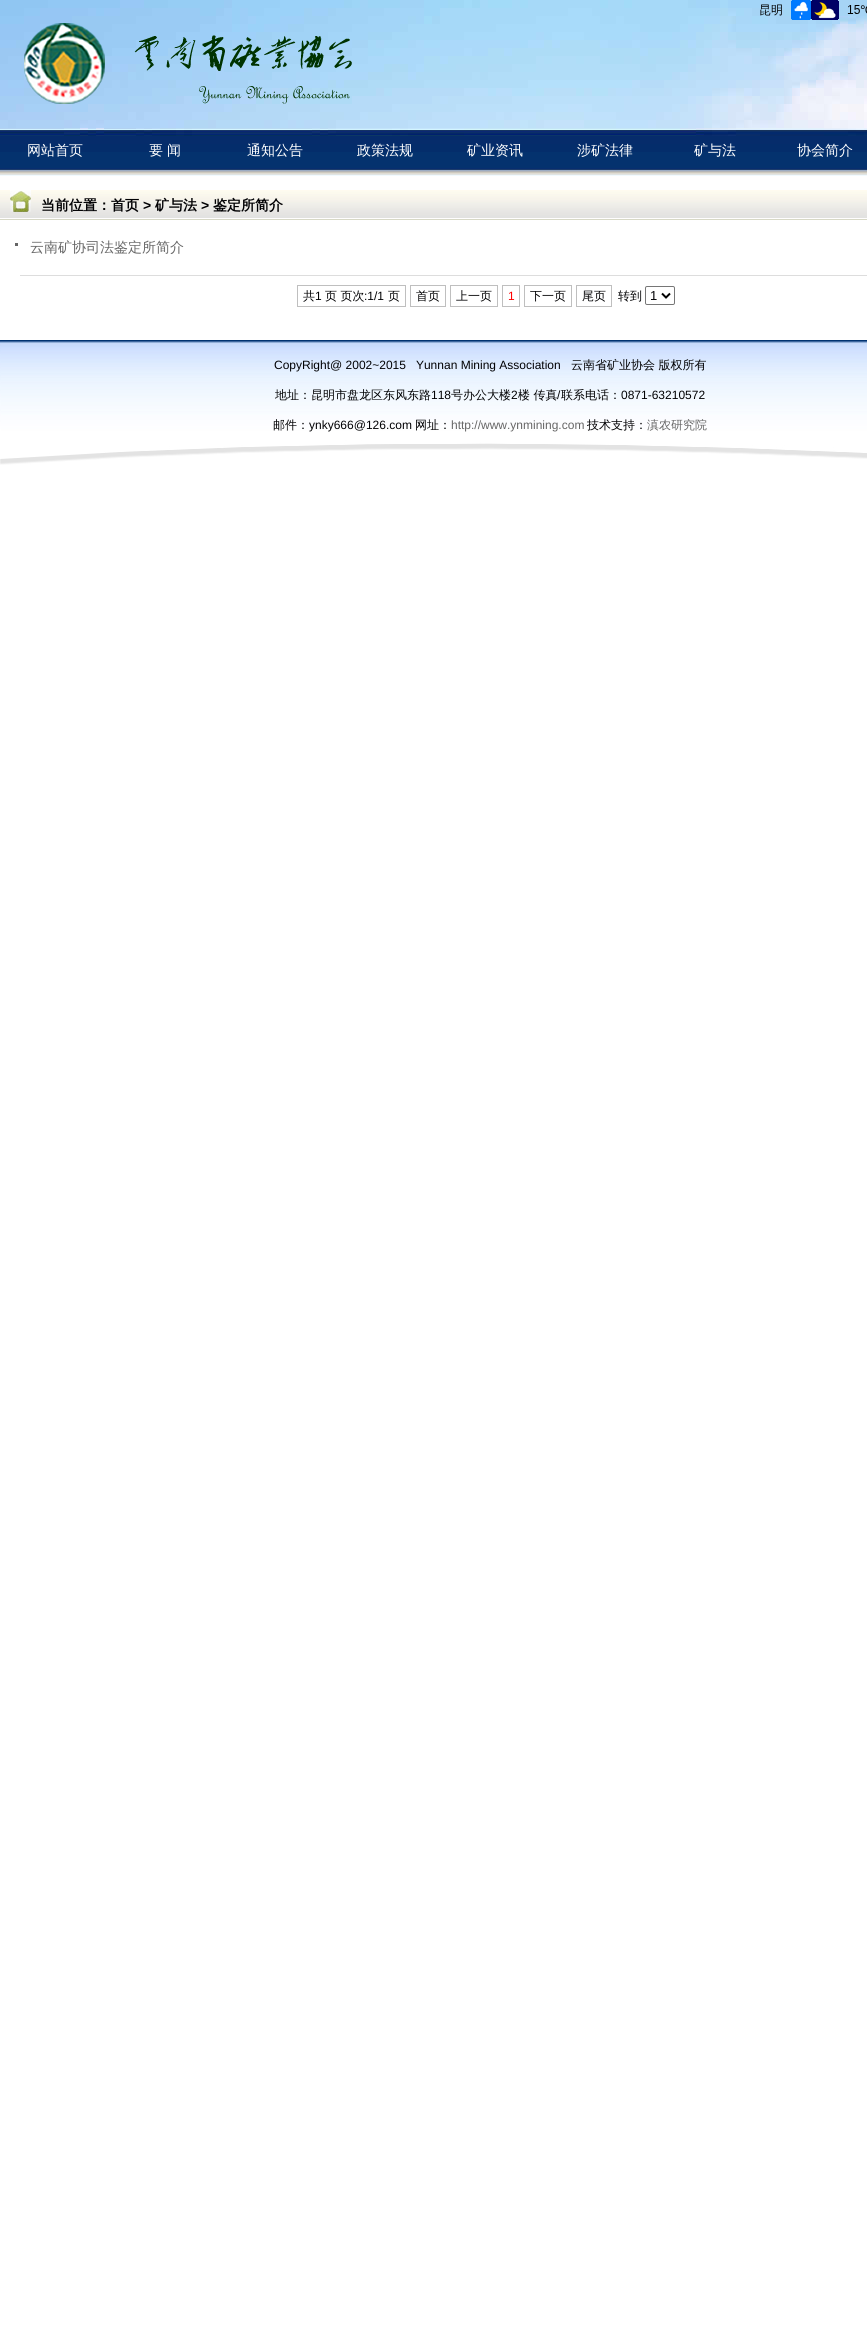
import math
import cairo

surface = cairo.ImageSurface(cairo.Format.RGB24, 867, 2337)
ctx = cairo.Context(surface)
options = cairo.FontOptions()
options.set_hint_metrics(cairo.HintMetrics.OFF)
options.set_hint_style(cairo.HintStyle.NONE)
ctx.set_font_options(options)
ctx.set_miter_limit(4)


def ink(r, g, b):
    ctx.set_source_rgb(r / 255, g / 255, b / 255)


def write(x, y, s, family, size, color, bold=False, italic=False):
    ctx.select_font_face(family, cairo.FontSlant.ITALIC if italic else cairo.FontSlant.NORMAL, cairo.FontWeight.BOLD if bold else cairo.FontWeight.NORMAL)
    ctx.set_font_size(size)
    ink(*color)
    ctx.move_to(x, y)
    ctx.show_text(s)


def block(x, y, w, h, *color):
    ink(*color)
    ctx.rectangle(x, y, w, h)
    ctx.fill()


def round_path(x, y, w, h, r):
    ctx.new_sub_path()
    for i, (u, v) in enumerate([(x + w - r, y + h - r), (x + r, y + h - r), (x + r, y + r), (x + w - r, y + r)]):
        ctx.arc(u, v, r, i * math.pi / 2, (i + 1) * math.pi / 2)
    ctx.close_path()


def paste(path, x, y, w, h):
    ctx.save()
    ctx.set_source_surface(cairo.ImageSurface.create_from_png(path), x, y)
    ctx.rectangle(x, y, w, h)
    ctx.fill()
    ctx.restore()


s1 = dict(family="WenQuanYi Zen Hei Medium", size=14, color=(255, 255, 255))
s2 = dict(family="WenQuanYi Zen Hei", size=14, color=(1, 1, 3), bold=True)
s3 = dict(family="Liberation Sans", size=14, color=(1, 1, 3), bold=True)
s4 = dict(family="WenQuanYi Zen Hei Medium", size=14, color=(102, 102, 102))
s5 = dict(family="WenQuanYi Zen Hei Medium", size=12, color=(1, 1, 3))
s6 = dict(family="Liberation Sans", size=12, color=(1, 1, 3))
s7 = dict(family="Liberation Sans", size=12, color=(255, 0, 0))
s8 = dict(family="Liberation Sans", size=13, color=(1, 1, 3))
s9 = dict(family="Liberation Sans", size=12, color=(102, 102, 102))
s10 = dict(family="WenQuanYi Zen Hei Medium", size=12, color=(102, 102, 102))

ink(255, 255, 255)
ctx.paint()
paste("pic1.png", 0, 0, 867, 176)
paste("pic2.png", 24, 23, 328, 81)
paste("pic3.png", 760, 0, 107, 20)
write(27, 155, "网站首页", **s1)
write(149, 155, "要", **s1)
write(167, 155, "闻", **s1)
write(247, 155, "通知公告", **s1)
write(357, 155, "政策法规", **s1)
write(467, 155, "矿业资讯", **s1)
write(577, 155, "涉矿法律", **s1)
write(694, 155, "矿与法", **s1)
write(797, 155, "协会简介", **s1)
paste("pic4.png", 0, 190, 867, 30)
paste("pic5.png", 10, 190, 21, 22)
write(41, 210, "当前位置：", **s2)
write(111, 210, "首页", **s2)
write(143, 210, ">", **s3)
write(155, 210, "矿与法", **s2)
write(201, 210, ">", **s3)
write(213, 210, "鉴定所简介", **s2)
block(15, 243, 3, 3, 101, 101, 101)
write(30, 252, "云南矿协司法鉴定所简介", **s4)
block(20, 275, 847, 1, 221, 221, 221)
ctx.rectangle(297.5, 285.5, 108, 21)
ink(191, 191, 191)
ctx.set_line_width(1)
ctx.stroke()
write(303, 300, "共", **s5)
write(315, 300, "1", **s6)
write(325, 300, "页 页次", **s5)
write(364, 300, ":1/1", **s6)
write(388, 300, "页", **s5)
ctx.rectangle(410.5, 285.5, 35, 21)
ink(191, 191, 191)
ctx.stroke()
write(416, 300, "首页", **s5)
ctx.rectangle(450.5, 285.5, 47, 21)
ink(191, 191, 191)
ctx.stroke()
write(456, 300, "上一页", **s5)
ctx.rectangle(502.5, 285.5, 17, 21)
ink(191, 191, 191)
ctx.stroke()
write(508, 300, "1", **s7)
ctx.rectangle(524.5, 285.5, 47, 21)
ink(191, 191, 191)
ctx.stroke()
write(530, 300, "下一页", **s5)
ctx.rectangle(576.5, 285.5, 35, 21)
ink(191, 191, 191)
ctx.stroke()
write(582, 300, "尾页", **s5)
write(618, 300, "转到", **s5)
round_path(645.5, 286.5, 29, 18, 1.5)
ink(118, 118, 118)
ctx.stroke()
ctx.new_path()
ctx.move_to(662, 293.5)
ctx.line_to(666, 297.5)
ctx.line_to(670, 293.5)
ink(0, 0, 0)
ctx.set_line_width(2)
ctx.stroke()
write(650, 300, "1", **s8)
paste("pic6.png", 0, 340, 867, 125)
write(274, 369, "CopyRight@ 2002~2015   Yunnan Mining Association", **s6)
write(571, 369, "云南省矿业协会 版权所有", **s5)
write(275, 399, "地址：昆明市盘龙区东风东路", **s5)
write(431, 399, "118", **s6)
write(451, 399, "号办公大楼", **s5)
write(511, 399, "2", **s6)
write(518, 399, "楼 传真", **s5)
write(557, 399, "/", **s6)
write(561, 399, "联系电话：", **s5)
write(621, 399, "0871-63210572", **s6)
write(273, 429, "邮件：", **s5)
write(309, 429, "ynky666@126.com", **s6)
write(415, 429, "网址：", **s5)
write(451, 429, "http://www.ynmining.com", **s9)
write(587, 429, "技术支持：", **s5)
write(647, 429, "滇农研究院", **s10)
surface.write_to_png("screenshot.png")
